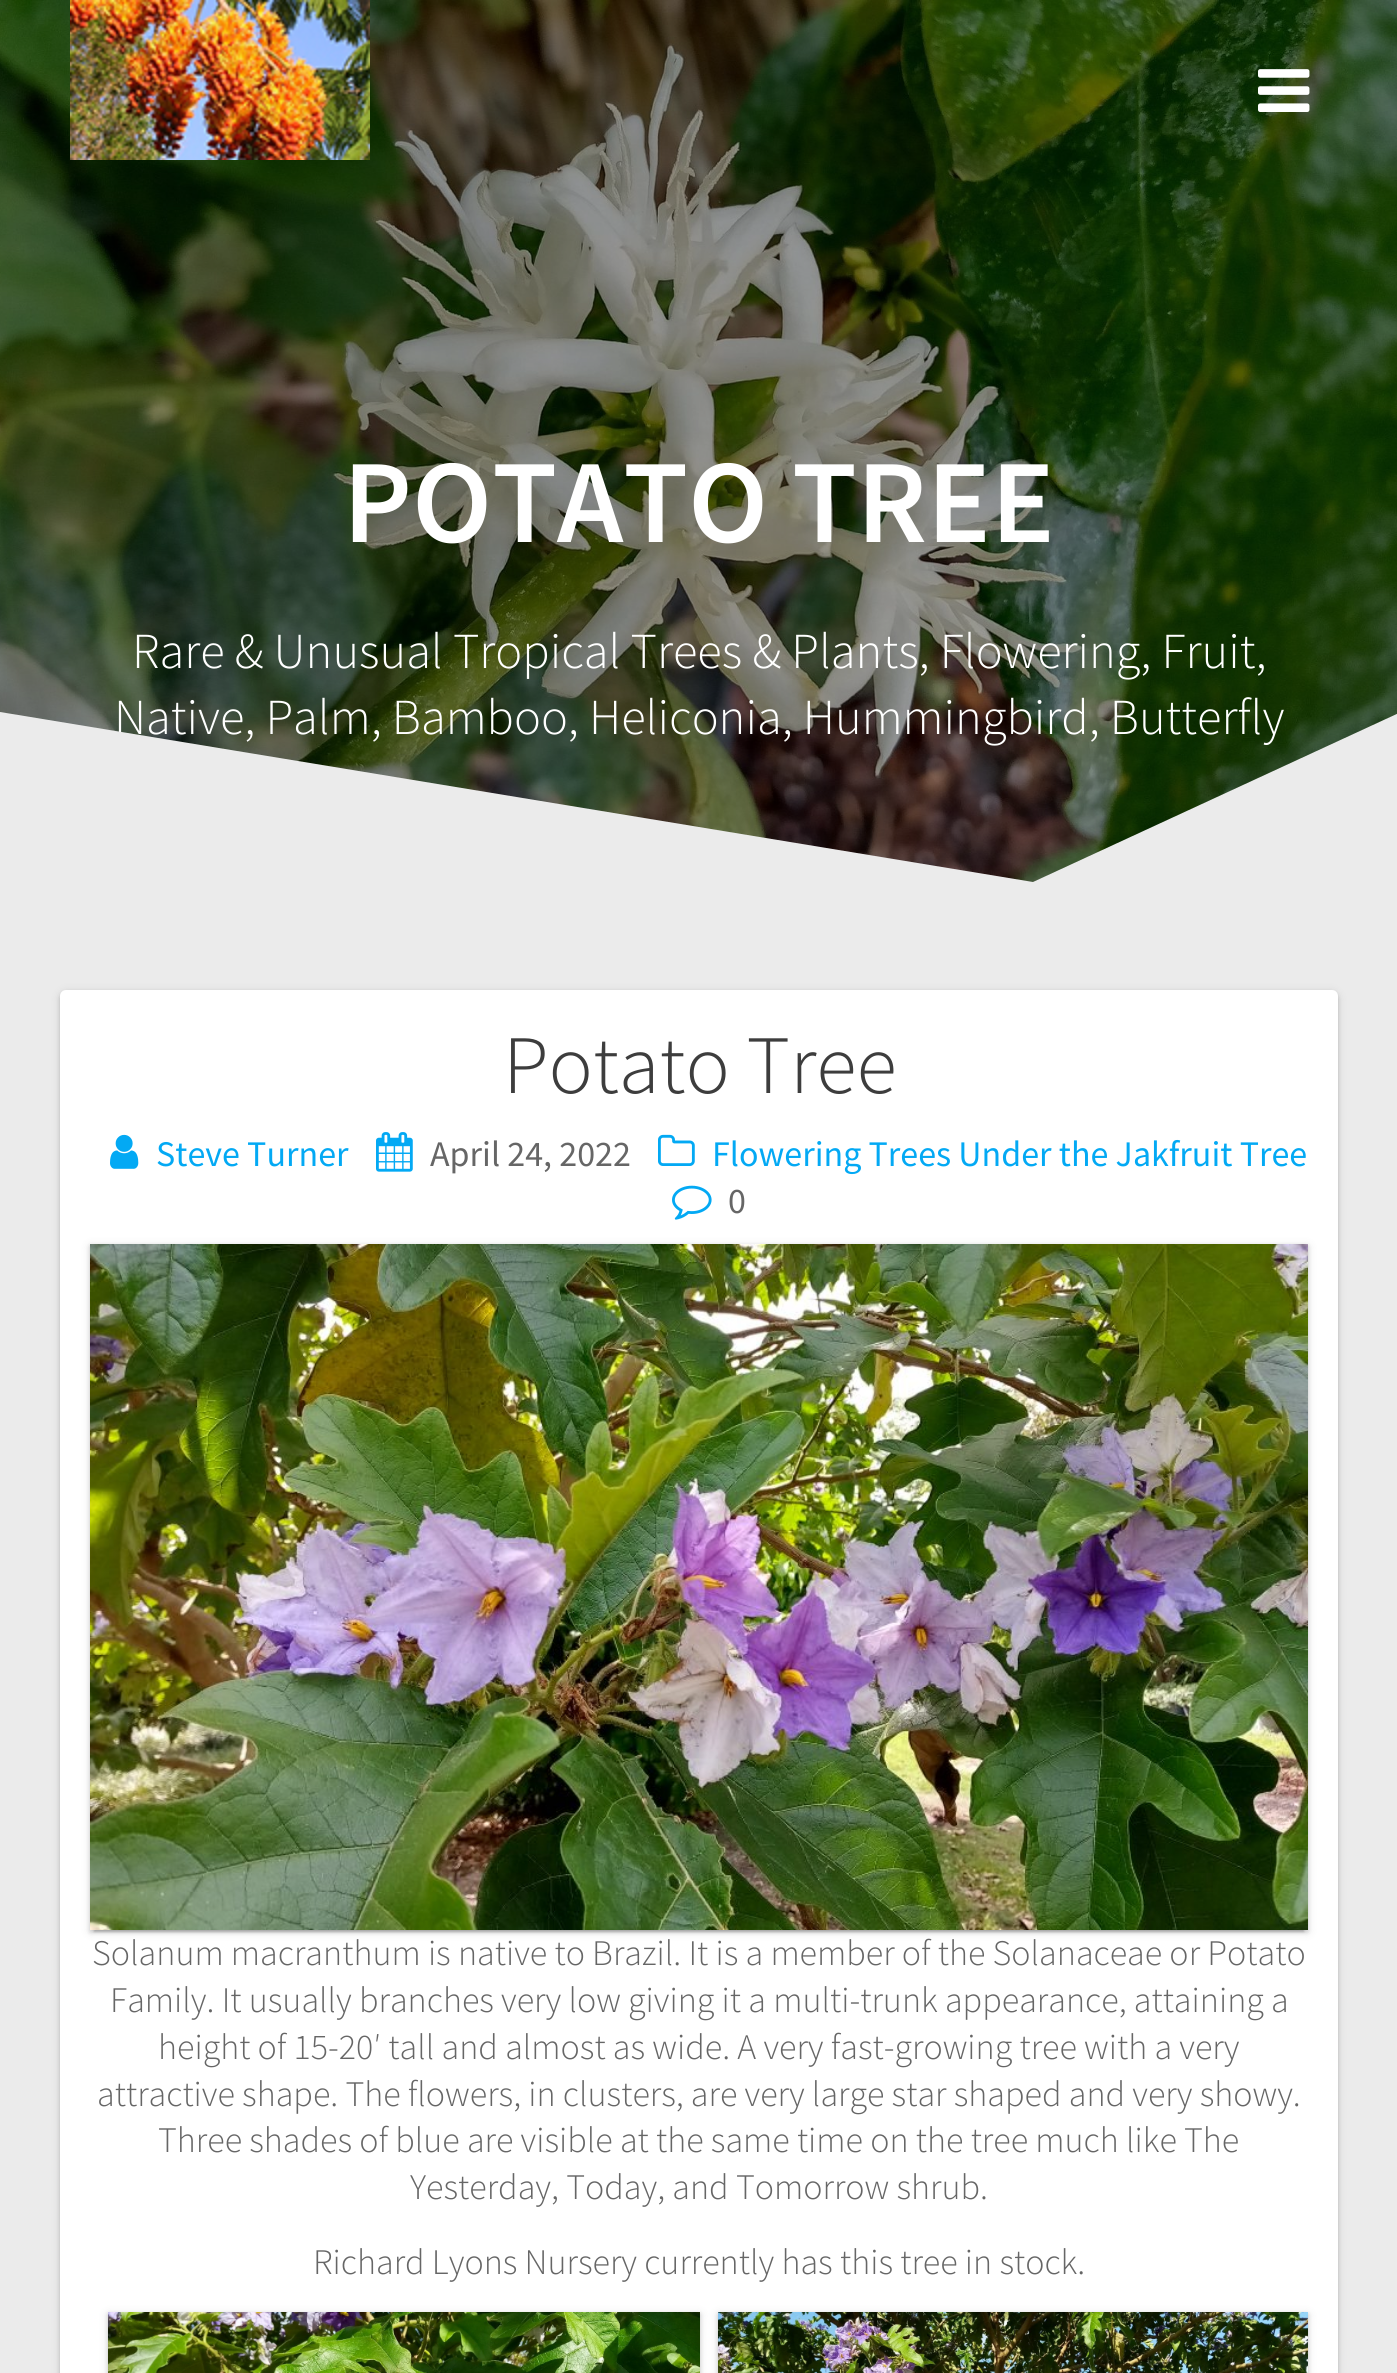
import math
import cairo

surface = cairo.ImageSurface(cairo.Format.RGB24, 1397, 2373)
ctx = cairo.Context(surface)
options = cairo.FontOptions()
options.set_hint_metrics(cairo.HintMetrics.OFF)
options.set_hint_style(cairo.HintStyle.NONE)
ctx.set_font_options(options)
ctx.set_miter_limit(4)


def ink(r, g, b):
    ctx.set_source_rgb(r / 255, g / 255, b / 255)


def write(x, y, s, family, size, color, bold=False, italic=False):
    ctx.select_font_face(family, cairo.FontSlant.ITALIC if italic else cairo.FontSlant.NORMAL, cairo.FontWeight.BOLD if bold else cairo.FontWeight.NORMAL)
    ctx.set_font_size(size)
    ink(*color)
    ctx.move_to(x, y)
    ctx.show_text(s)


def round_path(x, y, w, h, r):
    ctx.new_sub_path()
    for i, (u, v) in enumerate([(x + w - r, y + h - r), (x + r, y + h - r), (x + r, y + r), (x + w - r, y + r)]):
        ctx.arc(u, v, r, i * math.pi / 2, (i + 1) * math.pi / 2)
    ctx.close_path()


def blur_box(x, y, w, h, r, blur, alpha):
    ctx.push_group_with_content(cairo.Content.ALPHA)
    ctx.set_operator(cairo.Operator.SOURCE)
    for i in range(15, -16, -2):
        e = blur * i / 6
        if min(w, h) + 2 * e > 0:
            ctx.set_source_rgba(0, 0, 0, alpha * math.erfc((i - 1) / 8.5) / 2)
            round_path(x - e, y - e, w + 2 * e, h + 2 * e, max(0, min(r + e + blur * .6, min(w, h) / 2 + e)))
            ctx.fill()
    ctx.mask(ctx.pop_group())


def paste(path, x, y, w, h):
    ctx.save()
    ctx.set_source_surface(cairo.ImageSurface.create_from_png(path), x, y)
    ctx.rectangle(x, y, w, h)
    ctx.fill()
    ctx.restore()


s1 = dict(family="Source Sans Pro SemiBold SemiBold", size=118.75, color=(255, 255, 255))
s2 = dict(family="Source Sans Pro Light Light", size=50.4, color=(255, 255, 255))
s3 = dict(family="Source Sans Pro Light Light", size=83, color=(61, 61, 61))
s4 = dict(family="Source Sans Pro", size=36, color=(3, 169, 244))
s5 = dict(family="Source Sans Pro", size=36, color=(102, 102, 102))
s6 = dict(family="Source Sans Pro Light Light", size=36, color=(102, 102, 102))

ink(235, 235, 235)
ctx.paint()
paste("pic3.png", 0, 0, 1397, 882)
paste("pic1.png", 70, 0, 300, 160)
paste("pic2.png", 1258, 69, 52, 43)
write(343, 542, "POTATO TREE", **s1)
write(132, 668, "Rare & Unusual Tropical Trees & Plants, Flowering, Fruit,", **s2)
write(114, 734, "Native, Palm, Bamboo, Heliconia, Hummingbird, Butterfly", **s2)
ink(235, 235, 235)
ctx.new_path()
ctx.move_to(1033, 882)
ctx.line_to(0, 712)
ctx.line_to(0, 892)
ctx.line_to(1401, 892)
ctx.line_to(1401, 712)
ctx.close_path()
ctx.fill()
ink(0, 0, 0)
blur_box(60, 992, 1278, 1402, 6, 5, 0.12)
blur_box(60, 992, 1278, 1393, 6, 2, 0.14)
ink(255, 255, 255)
round_path(60, 990, 1278, 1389, 6)
ctx.fill()
write(503, 1093, "Potato Tree", **s3)
paste("pic4.png", 110, 1134, 29, 35)
write(156, 1166, "Steve Turner", **s4)
paste("pic5.png", 376, 1132, 37, 40)
write(430, 1166, "April 24, 2022", **s5)
paste("pic6.png", 658, 1134, 37, 32)
write(712, 1166, "Flowering Trees Under the Jakfruit Tree", **s4)
paste("pic7.png", 672, 1185, 40, 35)
write(728, 1213, "0", **s5)
ink(0, 0, 0)
blur_box(90, 1246, 1218, 686, 0, 5, 0.12)
blur_box(94, 1254, 1210, 678, 0, 1, 0.2)
blur_box(90, 1246, 1218, 686, 0, 2, 0.14)
paste("pic8.png", 90, 1244, 1218, 686)
write(92, 1965, "Solanum macranthum is native to Brazil. It is a member of the Solanaceae or Potato", **s6)
write(110, 2012, "Family. It usually branches very low giving it a multi-trunk appearance, attaining a", **s6)
write(158, 2059, "height of 15-20′ tall and almost as wide. A very fast-growing tree with a very", **s6)
write(97, 2106, "attractive shape. The flowers, in clusters, are very large star shaped and very showy.", **s6)
write(158, 2152, "Three shades of blue are visible at the same time on the tree much like The", **s6)
write(410, 2199, "Yesterday, Today, and Tomorrow shrub.", **s6)
write(313, 2274, "Richard Lyons Nursery currently has this tree in stock.", **s6)
ink(0, 0, 0)
blur_box(108, 2314, 592, 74, 0, 5, 0.12)
blur_box(108, 2314, 592, 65, 0, 2, 0.14)
paste("pic9.png", 108, 2312, 592, 61)
blur_box(718, 2314, 590, 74, 0, 5, 0.12)
blur_box(718, 2314, 590, 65, 0, 2, 0.14)
paste("pic10.png", 718, 2312, 590, 61)
surface.write_to_png("screenshot.png")
